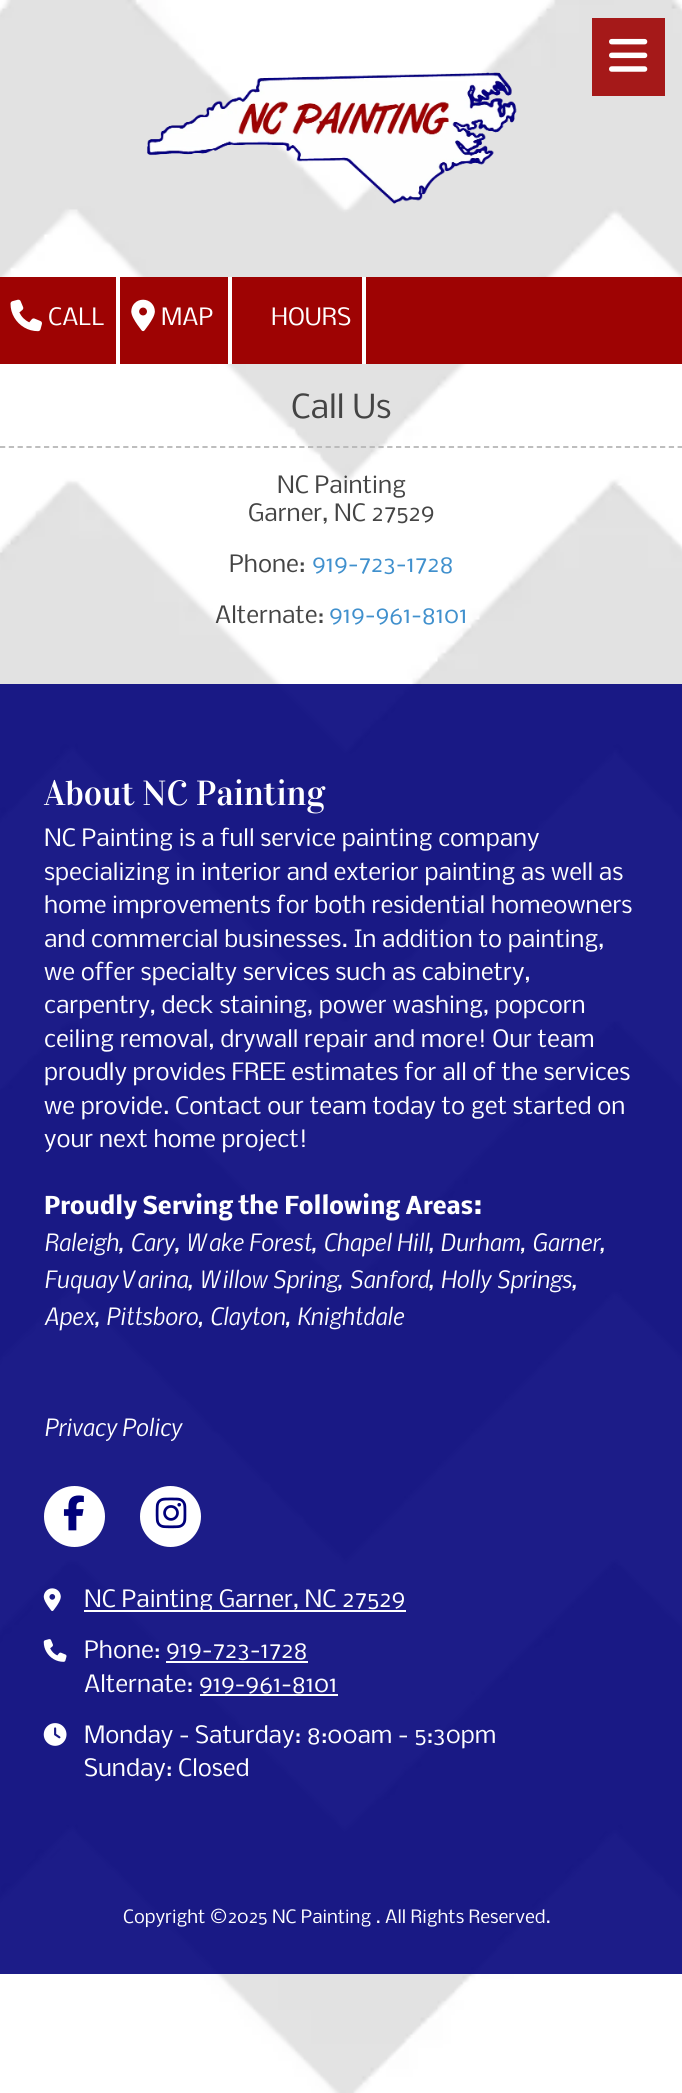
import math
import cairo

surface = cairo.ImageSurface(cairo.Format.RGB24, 682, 2093)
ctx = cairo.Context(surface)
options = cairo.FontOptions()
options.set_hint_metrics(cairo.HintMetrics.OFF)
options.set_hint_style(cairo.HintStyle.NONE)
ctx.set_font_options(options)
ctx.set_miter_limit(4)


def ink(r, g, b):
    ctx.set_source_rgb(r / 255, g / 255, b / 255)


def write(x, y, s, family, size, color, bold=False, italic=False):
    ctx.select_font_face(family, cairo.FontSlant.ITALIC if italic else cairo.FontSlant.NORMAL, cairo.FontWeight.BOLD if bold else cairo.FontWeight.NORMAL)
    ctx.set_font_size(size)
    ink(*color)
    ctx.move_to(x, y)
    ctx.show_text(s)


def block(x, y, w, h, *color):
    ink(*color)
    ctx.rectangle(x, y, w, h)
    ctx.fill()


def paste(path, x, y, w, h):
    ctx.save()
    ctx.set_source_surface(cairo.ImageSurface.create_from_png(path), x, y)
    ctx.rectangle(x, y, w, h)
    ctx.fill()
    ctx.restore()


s1 = dict(family="Nobile", size=22.75, color=(255, 255, 255))
s2 = dict(family="Nobile", size=31.5, color=(68, 68, 68))
s3 = dict(family="Nobile", size=22.75, color=(68, 68, 68))
s4 = dict(family="Nobile", size=22.75, color=(64, 144, 205))
s5 = dict(family="Vidaloka", size=35, color=(255, 255, 255))
s6 = dict(family="Nobile", size=22.75, color=(255, 255, 255), bold=True)
s7 = dict(family="Nobile", size=22.75, color=(255, 255, 255), italic=True)
s8 = dict(family="Nobile", size=17.5, color=(255, 255, 255))

ink(255, 255, 255)
ctx.paint()
paste("pic1.png", 0, 0, 682, 2093)
block(592, 18, 73, 78, 165, 25, 25)
paste("pic2.png", 609, 38, 39, 34)
paste("pic3.png", 147, 72, 370, 132)
block(0, 277, 682, 87, 158, 3, 3)
block(116, 277, 4, 87, 255, 255, 255)
paste("pic4.png", 10, 299, 32, 33)
write(48, 325, "CALL", **s1)
block(228, 277, 4, 87, 255, 255, 255)
paste("pic5.png", 131, 299, 24, 33)
write(161, 325, "MAP", **s1)
block(362, 277, 4, 87, 255, 255, 255)
write(271, 325, "HOURS", **s1)
write(291, 418, "Call Us", **s2)
ctx.new_path()
ctx.move_to(0, 447)
ctx.line_to(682.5, 447)
ink(183, 183, 183)
ctx.set_line_width(1.8)
ctx.set_dash([5.25, 3.55])
ctx.stroke()
write(277, 493, "NC Painting", **s3)
write(248, 521, "Garner, NC 27529", **s3)
write(229, 572, "Phone:", **s3)
write(312, 572, "919-723-1728", **s4)
write(215, 623, "Alternate:", **s3)
write(329, 623, "919-961-8101", **s4)
ctx.set_source_rgba(0, 0, 0.478, 0.89)
ctx.rectangle(0, 684, 682, 1290)
ctx.fill()
write(44, 805, "About NC Painting", **s5)
write(44, 846, "NC Painting is a full service painting company", **s1)
write(44, 880, "specializing in interior and exterior painting as well as", **s1)
write(44, 913, "home improvements for both residential homeowners", **s1)
write(44, 947, "and commercial businesses. In addition to painting,", **s1)
write(44, 980, "we offer specialty services such as cabinetry,", **s1)
write(44, 1013, "carpentry, deck staining, power washing, popcorn", **s1)
write(44, 1047, "ceiling removal, drywall repair and more! Our team", **s1)
write(44, 1080, "proudly provides FREE estimates for all of the services", **s1)
write(44, 1114, "we provide. Contact our team today to get started on", **s1)
write(44, 1147, "your next home project!", **s1)
write(44, 1214, "Proudly Serving the Following Areas:", **s6)
write(44, 1251, "Raleigh, Cary, Wake Forest, Chapel Hill, Durham, Garner,", **s7)
write(44, 1288, "Fuquay Varina, Willow Spring, Sanford, Holly Springs,", **s7)
write(44, 1325, "Apex, Pittsboro, Clayton, Knightdale", **s7)
write(44, 1436, "Privacy Policy", **s7)
ctx.new_path()
ctx.arc(74.5, 1516.5, 30.5, 0, 2 * math.pi)
ctx.fill()
paste("pic6.png", 63, 1495, 21, 36)
ctx.arc(170.5, 1516.5, 30.5, 0, 2 * math.pi)
ctx.fill()
paste("pic7.png", 155, 1497, 32, 32)
paste("pic8.png", 43, 1588, 18, 23)
block(84, 1610, 322, 2, 255, 255, 255)
write(84, 1607, "NC Painting Garner, NC 27529", **s1)
paste("pic9.png", 43, 1639, 24, 23)
write(84, 1658, "Phone: 919-723-1728", **s1)
block(166, 1661, 142, 2, 255, 255, 255)
write(84, 1692, "Alternate: 919-961-8101", **s1)
block(200, 1694, 138, 2, 255, 255, 255)
paste("pic10.png", 43, 1723, 24, 23)
write(84, 1743, "Monday - Saturday: 8:00am - 5:30pm", **s1)
write(84, 1776, "Sunday: Closed", **s1)
write(123, 1923, "Copyright ©2025 NC Painting . All Rights Reserved.", **s8)
surface.write_to_png("screenshot.png")
